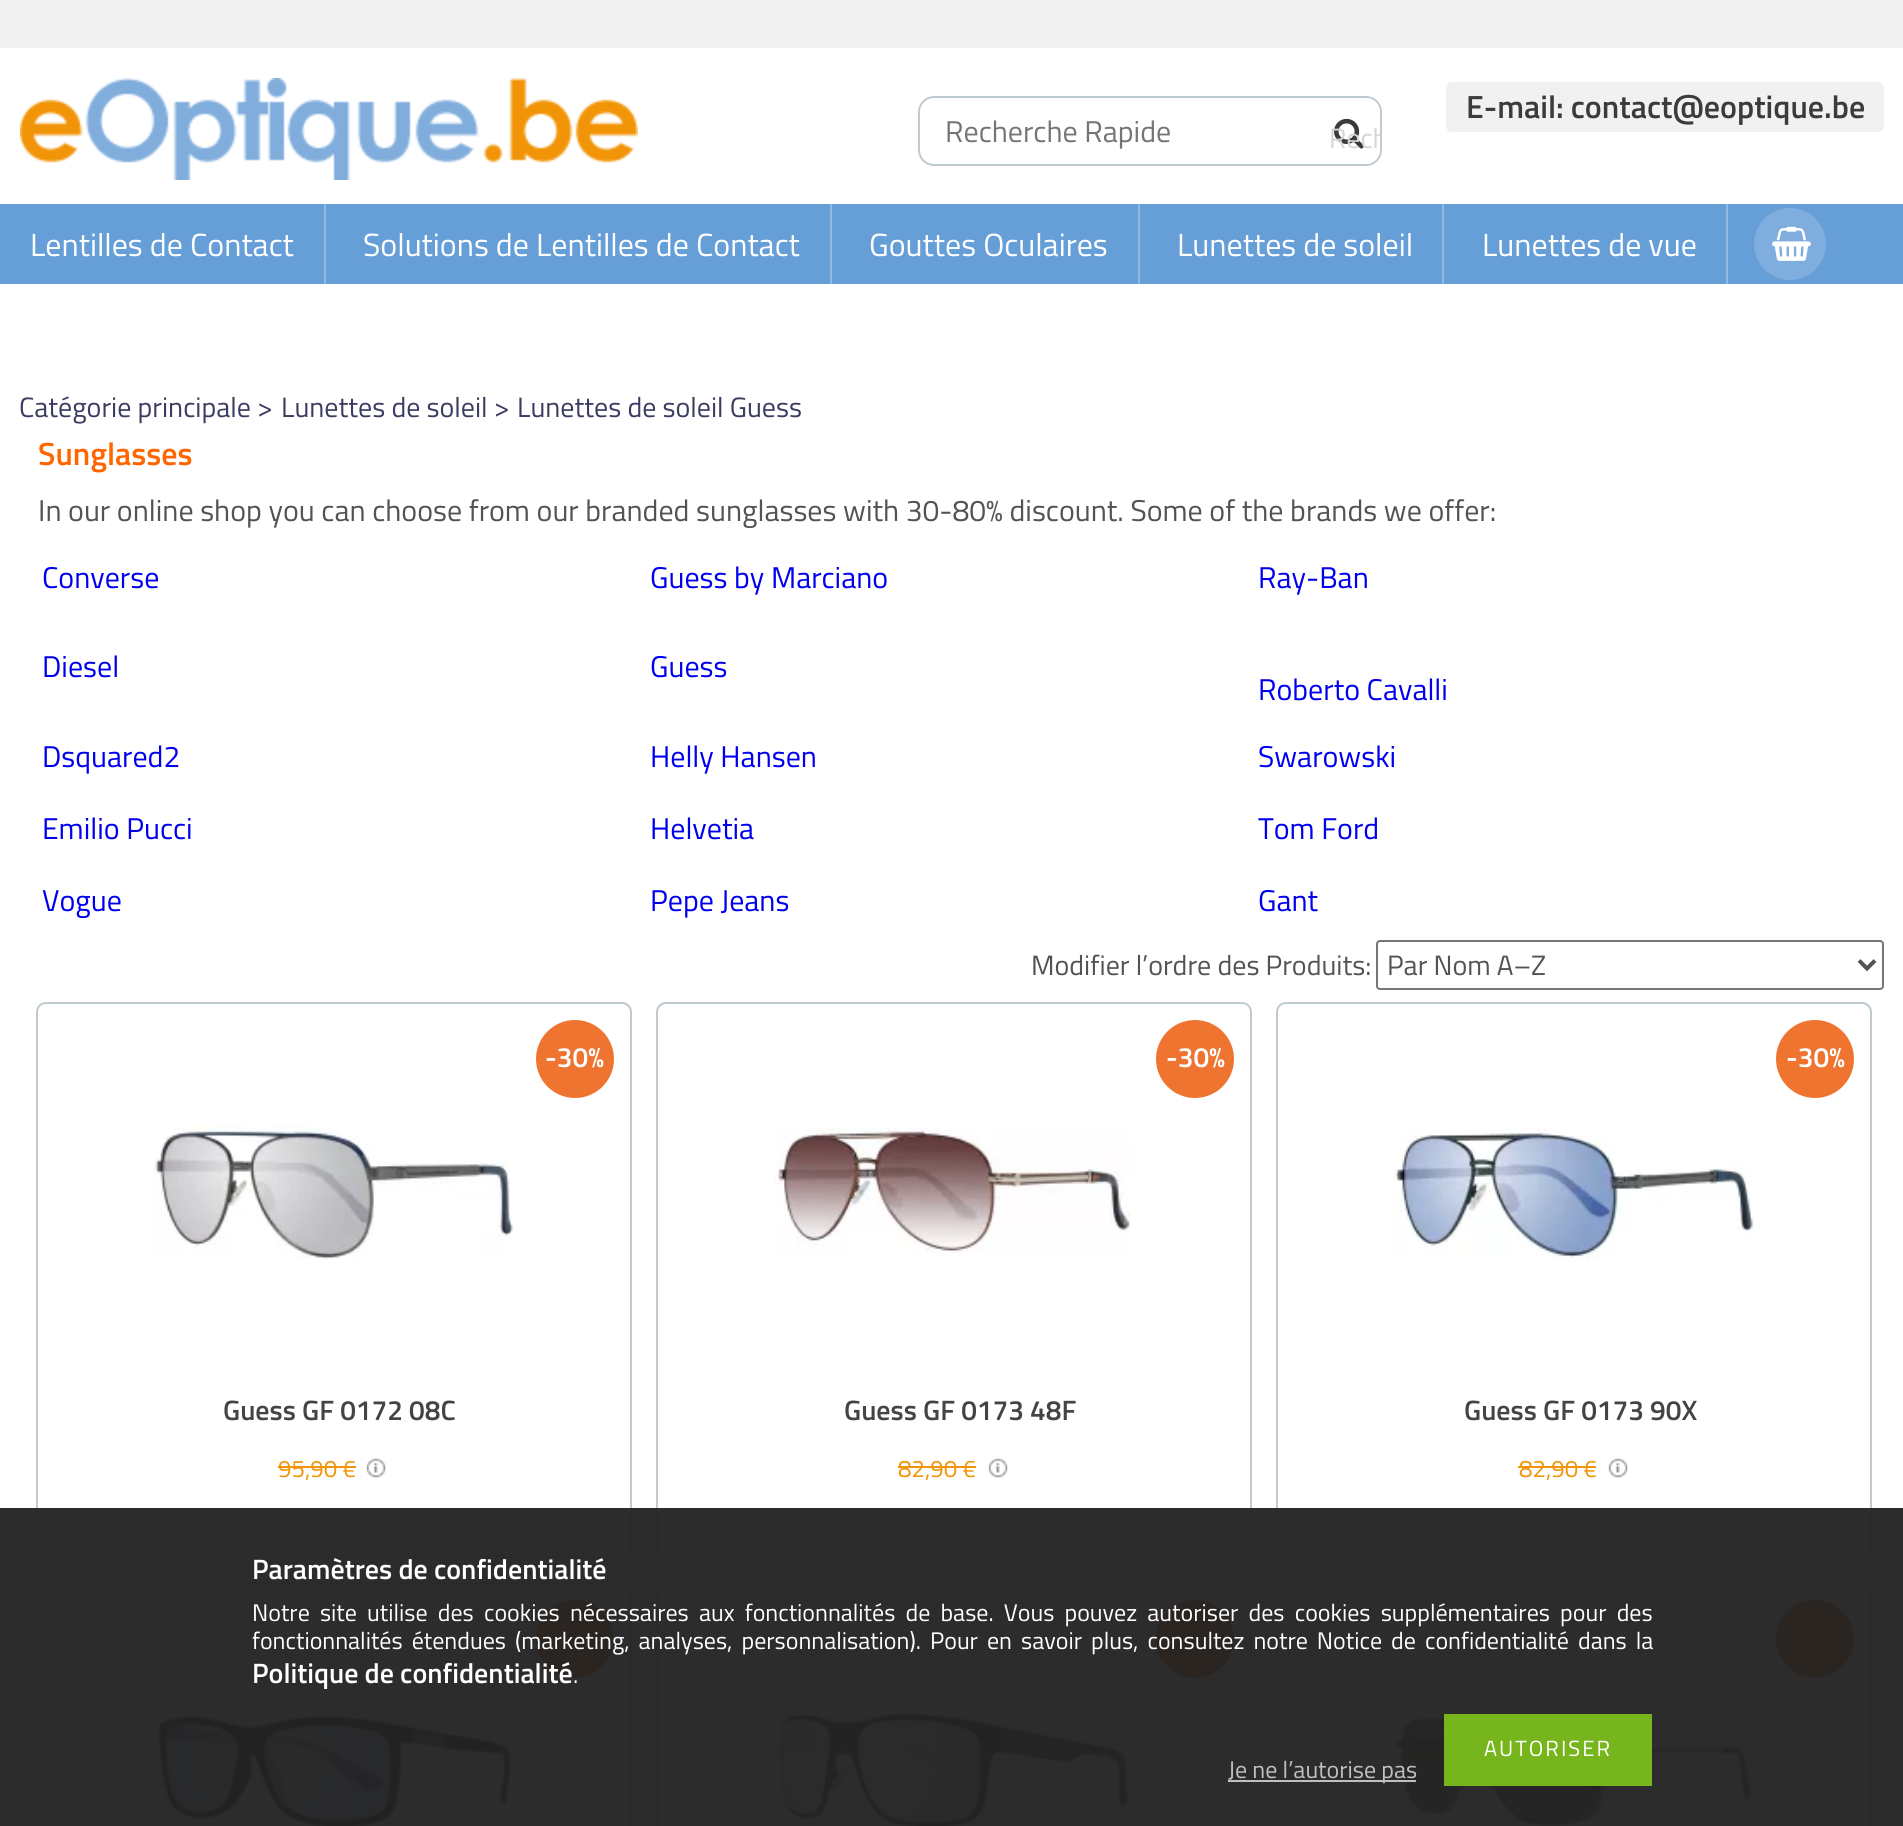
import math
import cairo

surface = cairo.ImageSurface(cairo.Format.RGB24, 1903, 1826)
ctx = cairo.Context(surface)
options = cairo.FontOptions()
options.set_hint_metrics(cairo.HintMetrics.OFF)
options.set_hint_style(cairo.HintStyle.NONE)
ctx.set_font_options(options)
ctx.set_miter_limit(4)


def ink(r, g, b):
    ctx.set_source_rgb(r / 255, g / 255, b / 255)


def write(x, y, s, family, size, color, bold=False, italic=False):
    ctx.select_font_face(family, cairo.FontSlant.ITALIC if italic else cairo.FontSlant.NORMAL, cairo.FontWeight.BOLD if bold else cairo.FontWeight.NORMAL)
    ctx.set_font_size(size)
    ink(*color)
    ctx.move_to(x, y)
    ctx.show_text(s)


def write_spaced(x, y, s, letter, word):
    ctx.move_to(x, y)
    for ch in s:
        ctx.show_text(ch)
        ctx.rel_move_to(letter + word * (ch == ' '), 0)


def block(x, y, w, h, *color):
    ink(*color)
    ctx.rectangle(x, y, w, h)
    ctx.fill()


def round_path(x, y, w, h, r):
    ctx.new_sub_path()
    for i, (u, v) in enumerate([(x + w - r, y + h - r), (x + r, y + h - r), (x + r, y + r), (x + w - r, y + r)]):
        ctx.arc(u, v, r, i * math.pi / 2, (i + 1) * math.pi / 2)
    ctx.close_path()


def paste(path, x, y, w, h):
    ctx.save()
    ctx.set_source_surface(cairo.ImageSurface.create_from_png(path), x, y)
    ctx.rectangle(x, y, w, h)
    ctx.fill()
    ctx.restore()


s1 = dict(family="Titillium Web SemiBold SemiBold", size=32, color=(59, 59, 59))
s2 = dict(family="Titillium Web", size=30, color=(117, 117, 117))
s3 = dict(family="Titillium Web", size=28, color=(213, 213, 213))
s4 = dict(family="Titillium Web", size=32, color=(255, 255, 255))
s5 = dict(family="Titillium Web", size=28, color=(60, 60, 98))
s6 = dict(family="Titillium Web SemiBold SemiBold", size=32, color=(255, 102, 0))
s7 = dict(family="Titillium Web", size=30, color=(83, 83, 83))
s8 = dict(family="Titillium Web", size=30, color=(0, 0, 238))
s9 = dict(family="Titillium Web", size=28, color=(83, 83, 83))
s10 = dict(family="Titillium Web SemiBold SemiBold", size=28, color=(255, 255, 255))
s11 = dict(family="Titillium Web SemiBold SemiBold", size=28, color=(68, 68, 68))
s12 = dict(family="Titillium Web", size=24, color=(241, 148, 6))
s13 = dict(family="Titillium Web", size=24, color=(255, 255, 255))
s14 = dict(family="Titillium Web", size=24, color=(192, 192, 192))

ink(255, 255, 255)
ctx.paint()
block(0, 0, 1903, 48, 241, 241, 241)
paste("pic1.png", 20, 78, 618, 102)
round_path(1446, 82, 438, 50, 6)
ctx.fill()
write(1466, 118, "E-mail: contact@eoptique.be", **s1)
round_path(919, 97, 462, 68, 15)
ink(191, 203, 208)
ctx.stroke()
write(945, 142, "Recherche Rapide", **s2)
ink(255, 255, 255)
ctx.new_path()
ctx.move_to(1318, 98)
ctx.line_to(1366, 98)
ctx.curve_to(1373.5, 98, 1380, 104.5, 1380, 112)
ctx.line_to(1380, 150)
ctx.curve_to(1380, 157.5, 1373.5, 164, 1366, 164)
ctx.line_to(1318, 164)
ctx.close_path()
ctx.fill()
paste("pic2.png", 1334, 118, 30, 31)
ctx.save()
round_path(1318, 108, 62, 60, 8)
ctx.clip()
write(1329, 148, "Rech", **s3)
ctx.restore()
block(0, 204, 1903, 80, 102, 158, 216)
write(30, 256, "Lentilles de Contact", **s4)
block(324, 204, 2, 80, 148, 185, 224)
write(363, 256, "Solutions de Lentilles de Contact", **s4)
block(830, 204, 2, 80, 148, 185, 224)
write(869, 256, "Gouttes Oculaires", **s4)
block(1138, 204, 2, 80, 148, 185, 224)
write(1177, 256, "Lunettes de soleil", **s4)
block(1442, 204, 2, 80, 148, 185, 224)
write(1482, 256, "Lunettes de vue", **s4)
block(1726, 204, 2, 80, 148, 185, 224)
ink(127, 173, 221)
ctx.new_path()
ctx.arc(1790, 244, 35, 0, 2 * math.pi)
ctx.fill_preserve()
ctx.stroke()
paste("pic3.png", 1772, 226, 39, 35)
write(19, 417, "Catégorie principale >", **s5)
write(281, 417, "Lunettes de soleil >", **s5)
write(517, 417, "Lunettes de soleil Guess", **s5)
write(38, 465, "Sunglasses", **s6)
write(38, 521, "In our online shop you can choose from our branded sunglasses with 30-80% discount. Some of the brands we offer:", **s7)
write(42, 588, "Converse", **s8)
write(650, 588, "Guess by Marciano", **s8)
write(1258, 588, "Ray-Ban", **s8)
write(42, 677, "Diesel", **s8)
write(650, 677, "Guess", **s8)
write(1258, 700, "Roberto Cavalli", **s8)
write(42, 767, "Dsquared2", **s8)
write(650, 767, "Helly Hansen", **s8)
write(1258, 767, "Swarowski", **s8)
write(42, 839, "Emilio Pucci", **s8)
write(650, 839, "Helvetia", **s8)
write(1258, 839, "Tom Ford", **s8)
write(42, 911, "Vogue", **s8)
write(650, 911, "Pepe Jeans", **s8)
write(1258, 911, "Gant", **s8)
write(1031, 975, "Modifier l’ordre des Produits:", **s9)
round_path(1377, 941, 506, 48, 3)
ink(118, 118, 118)
ctx.stroke()
ctx.new_path()
ctx.move_to(1859, 960.5)
ctx.line_to(1867, 968.5)
ctx.line_to(1875, 960.5)
ink(83, 83, 83)
ctx.set_line_width(4)
ctx.stroke()
write(1387, 975, "Par Nom A–Z", **s9)
round_path(37, 1003, 594, 554, 9)
ink(191, 203, 208)
ctx.set_line_width(2)
ctx.stroke()
ink(239, 116, 48)
ctx.arc(575, 1059, 37, 0, 2 * math.pi)
ctx.fill_preserve()
ctx.set_line_width(4)
ctx.stroke()
write(545, 1067, "-30%", **s10)
paste("pic4.png", 154, 1125, 359, 134)
write(223, 1420, "Guess GF 0172 08C", **s11)
write(278, 1477, "95,90 €", **s12)
block(278, 1466, 78, 2, 241, 148, 6)
paste("pic5.png", 366, 1458, 20, 20)
round_path(657, 1003, 594, 554, 9)
ink(191, 203, 208)
ctx.set_line_width(2)
ctx.stroke()
ink(239, 116, 48)
ctx.arc(1195, 1059, 37, 0, 2 * math.pi)
ctx.fill_preserve()
ctx.set_line_width(4)
ctx.stroke()
write(1166, 1067, "-30%", **s10)
paste("pic6.png", 774, 1128, 357, 125)
write(844, 1420, "Guess GF 0173 48F", **s11)
write(898, 1477, "82,90 €", **s12)
block(898, 1466, 78, 2, 241, 148, 6)
paste("pic7.png", 988, 1458, 20, 20)
round_path(1277, 1003, 594, 554, 9)
ink(191, 203, 208)
ctx.set_line_width(2)
ctx.stroke()
ink(239, 116, 48)
ctx.arc(1815, 1059, 37, 0, 2 * math.pi)
ctx.fill_preserve()
ctx.set_line_width(4)
ctx.stroke()
write(1786, 1067, "-30%", **s10)
paste("pic8.png", 1394, 1128, 360, 131)
write(1464, 1420, "Guess GF 0173 90X", **s11)
write(1519, 1477, "82,90 €", **s12)
block(1518, 1466, 78, 2, 241, 148, 6)
paste("pic7.png", 1608, 1458, 20, 20)
round_path(37, 1583, 594, 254, 9)
ink(191, 203, 208)
ctx.set_line_width(2)
ctx.stroke()
paste("pic9.png", 154, 1715, 357, 111)
ink(239, 116, 48)
ctx.arc(575, 1639, 37, 0, 2 * math.pi)
ctx.fill_preserve()
ctx.set_line_width(4)
ctx.stroke()
round_path(657, 1583, 594, 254, 9)
ink(191, 203, 208)
ctx.set_line_width(2)
ctx.stroke()
paste("pic10.png", 774, 1711, 357, 115)
ink(239, 116, 48)
ctx.arc(1195, 1639, 37, 0, 2 * math.pi)
ctx.fill_preserve()
ctx.set_line_width(4)
ctx.stroke()
round_path(1277, 1583, 594, 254, 9)
ink(191, 203, 208)
ctx.set_line_width(2)
ctx.stroke()
paste("pic11.png", 1394, 1715, 359, 111)
ink(239, 116, 48)
ctx.arc(1815, 1639, 37, 0, 2 * math.pi)
ctx.fill_preserve()
ctx.set_line_width(4)
ctx.stroke()
ctx.set_source_rgba(0.133, 0.133, 0.133, 0.95)
ctx.rectangle(0, 1508, 1903, 318)
ctx.fill()
write(252, 1579, "Paramètres de confidentialité", **s10)
ctx.select_font_face("Titillium Web")
ctx.set_font_size(24)
write_spaced(252, 1621, "Notre site utilise des cookies nécessaires aux fonctionnalités de base. Vous pouvez autoriser des cookies supplémentaires pour des", 0, 4.9)
write_spaced(252, 1649, "fonctionnalités étendues (marketing, analyses, personnalisation). Pour en savoir plus, consultez notre Notice de confidentialité dans la", 0, 3.75)
write(252, 1683, "Politique de confidentialité", **s10)
write(573, 1683, ".", **s13)
block(1444, 1714, 208, 72, 118, 181, 27)
ctx.set_font_size(22)
ink(255, 255, 255)
write_spaced(1484, 1756, "AUTORISER", 2, 0)
ctx.set_source_rgba(1, 1, 1, 0.7)
ctx.rectangle(1228, 1780, 188, 2)
ctx.fill()
write(1228, 1778, "Je ne l’autorise pas", **s14)
surface.write_to_png("screenshot.png")
